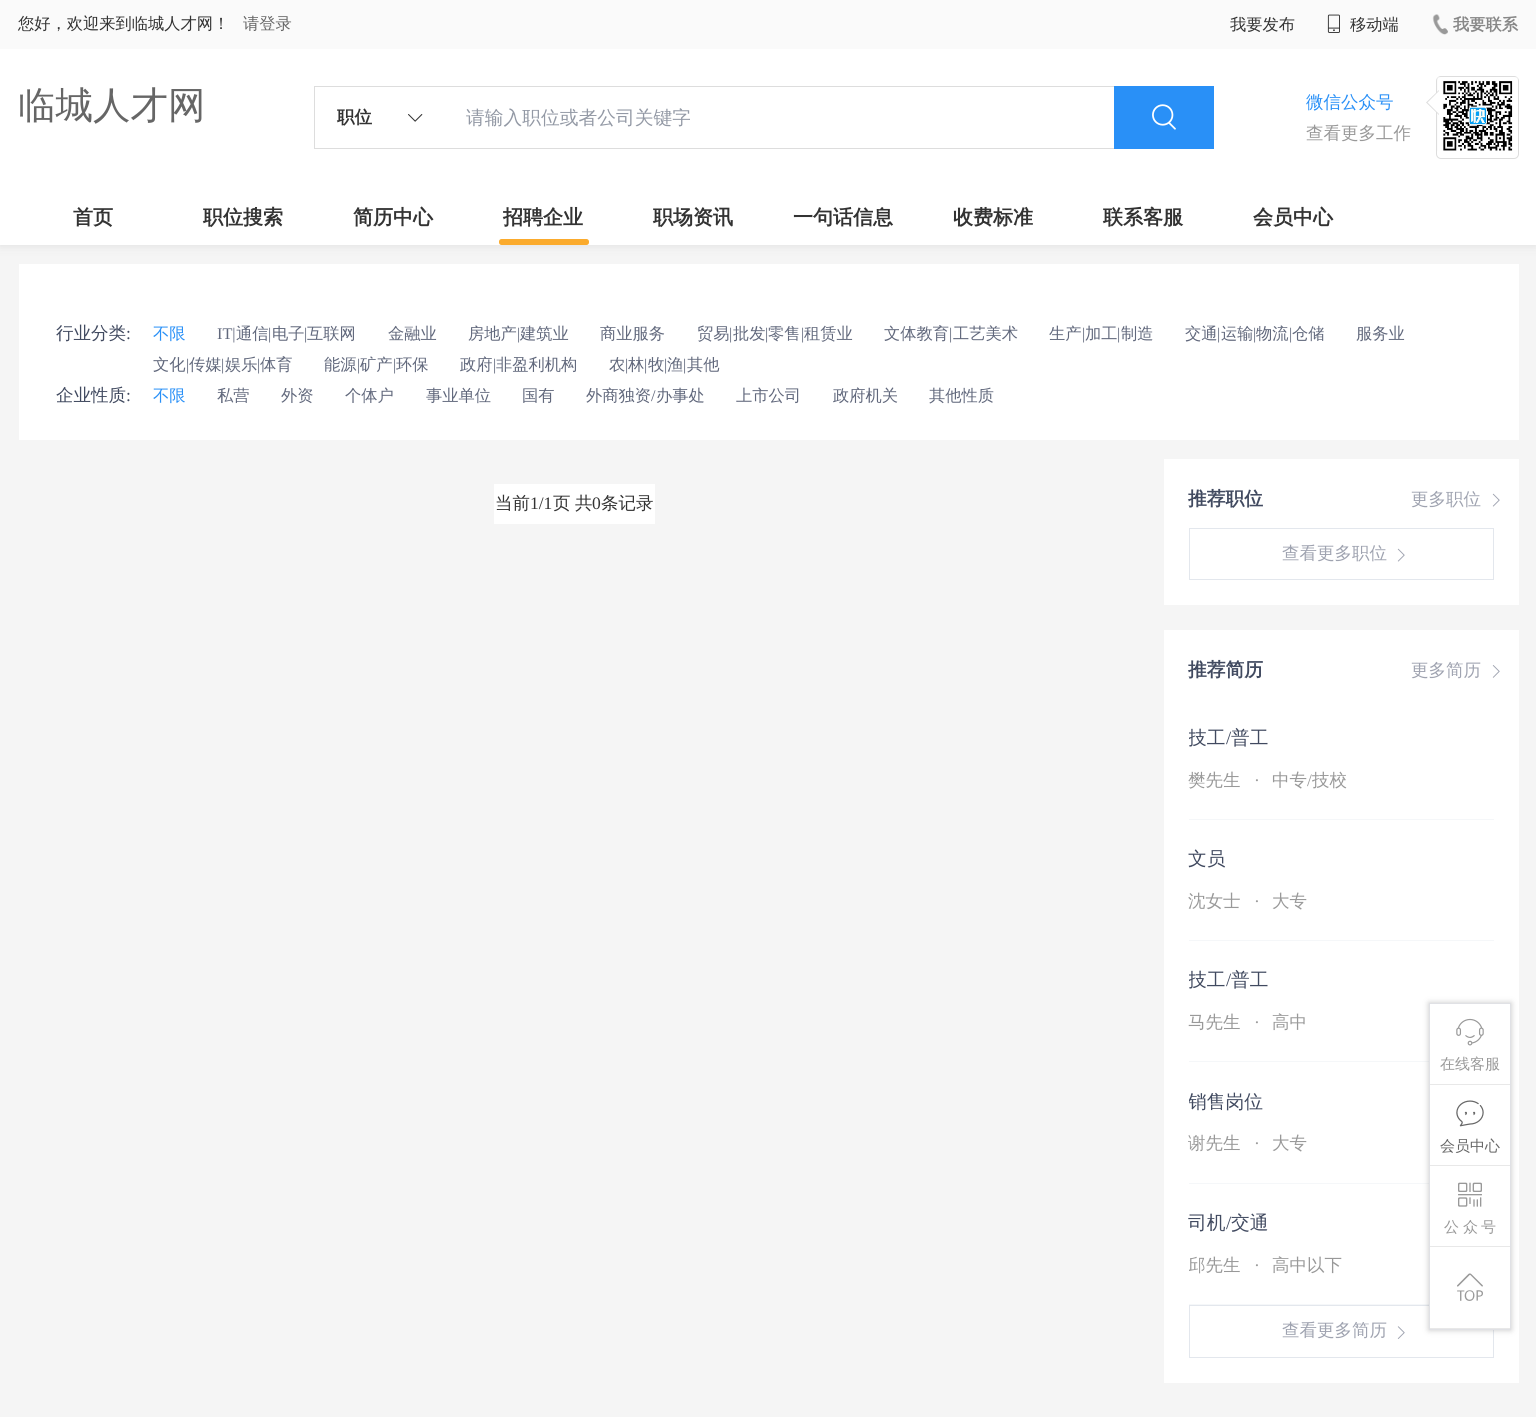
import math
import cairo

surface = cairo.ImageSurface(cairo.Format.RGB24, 1536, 1417)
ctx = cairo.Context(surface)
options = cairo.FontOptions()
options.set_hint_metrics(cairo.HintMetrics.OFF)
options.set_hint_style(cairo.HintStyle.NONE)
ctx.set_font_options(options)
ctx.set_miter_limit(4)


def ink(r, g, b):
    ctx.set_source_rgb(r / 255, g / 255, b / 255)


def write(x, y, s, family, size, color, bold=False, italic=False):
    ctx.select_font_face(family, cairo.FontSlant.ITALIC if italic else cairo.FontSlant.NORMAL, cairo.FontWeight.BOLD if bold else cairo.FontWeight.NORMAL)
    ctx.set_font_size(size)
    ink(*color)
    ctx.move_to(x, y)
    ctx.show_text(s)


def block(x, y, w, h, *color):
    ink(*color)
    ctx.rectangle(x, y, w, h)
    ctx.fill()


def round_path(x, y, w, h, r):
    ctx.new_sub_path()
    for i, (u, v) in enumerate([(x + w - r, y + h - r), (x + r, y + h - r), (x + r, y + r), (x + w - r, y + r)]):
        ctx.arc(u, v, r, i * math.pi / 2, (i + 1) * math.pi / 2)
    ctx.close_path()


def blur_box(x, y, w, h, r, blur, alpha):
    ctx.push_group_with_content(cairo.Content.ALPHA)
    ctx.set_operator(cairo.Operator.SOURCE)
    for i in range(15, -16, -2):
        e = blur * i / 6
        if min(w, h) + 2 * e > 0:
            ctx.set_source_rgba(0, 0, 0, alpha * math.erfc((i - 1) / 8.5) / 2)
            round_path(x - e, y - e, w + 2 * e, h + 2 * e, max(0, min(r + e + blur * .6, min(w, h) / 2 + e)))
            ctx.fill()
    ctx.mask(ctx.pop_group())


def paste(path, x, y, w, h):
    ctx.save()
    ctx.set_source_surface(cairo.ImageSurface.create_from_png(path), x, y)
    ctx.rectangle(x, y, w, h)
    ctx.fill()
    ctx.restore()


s1 = dict(family="WenQuanYi Zen Hei Medium", size=16.25, color=(51, 51, 51))
s2 = dict(family="WenQuanYi Zen Hei Medium", size=16.25, color=(102, 102, 102))
s3 = dict(family="WenQuanYi Zen Hei", size=16.25, color=(136, 136, 136), bold=True)
s4 = dict(family="WenQuanYi Zen Hei Medium", size=37.5, color=(102, 102, 102))
s5 = dict(family="WenQuanYi Zen Hei", size=17.5, color=(51, 51, 51), bold=True)
s6 = dict(family="WenQuanYi Zen Hei Medium", size=18.75, color=(147, 153, 165))
s7 = dict(family="WenQuanYi Zen Hei Medium", size=17.5, color=(41, 144, 247))
s8 = dict(family="WenQuanYi Zen Hei Medium", size=17.5, color=(153, 153, 153))
s9 = dict(family="WenQuanYi Zen Hei", size=20, color=(51, 51, 51), bold=True)
s10 = dict(family="WenQuanYi Zen Hei Medium", size=15, color=(153, 153, 153))
s11 = dict(family="WenQuanYi Zen Hei Medium", size=15, color=(102, 102, 102))
s12 = dict(family="WenQuanYi Zen Hei Medium", size=17.5, color=(65, 74, 96))
s13 = dict(family="Liberation Serif", size=17.5, color=(65, 74, 96))
s14 = dict(family="WenQuanYi Zen Hei Medium", size=16.25, color=(41, 144, 247))
s15 = dict(family="Liberation Serif", size=16.25, color=(97, 104, 124))
s16 = dict(family="WenQuanYi Zen Hei Medium", size=16.25, color=(97, 104, 124))
s17 = dict(family="WenQuanYi Zen Hei Medium", size=17.5, color=(51, 51, 51))
s18 = dict(family="Liberation Serif", size=17.5, color=(51, 51, 51))
s19 = dict(family="WenQuanYi Zen Hei", size=18.75, color=(65, 74, 96), bold=True)
s20 = dict(family="WenQuanYi Zen Hei Medium", size=17.5, color=(159, 163, 176))
s21 = dict(family="WenQuanYi Zen Hei Medium", size=18.75, color=(65, 74, 96))
s22 = dict(family="Liberation Serif", size=18.75, color=(65, 74, 96))
s23 = dict(family="Liberation Serif", size=17.5, color=(153, 153, 153))

ink(245, 245, 245)
ctx.paint()
ink(221, 221, 221)
blur_box(0, 0, 1536, 245, 0, 5, 1)
block(0, 49, 1536, 196, 255, 255, 255)
block(0, 0, 1536, 49, 250, 250, 250)
write(18, 29, "您好，欢迎来到临城人才网！", **s1)
write(243, 29, "请登录", **s2)
write(1230, 30, "我要发布", **s1)
paste("pic1.png", 1327, 14, 13, 19)
write(1350, 30, "移动端", **s1)
paste("pic2.png", 1432, 14, 16, 21)
write(1453, 30, "我要联系", **s3)
write(18, 118, "临城人才网", **s4)
ctx.rectangle(314.5, 86.5, 125, 62)
ink(221, 221, 221)
ctx.set_line_width(1)
ctx.stroke()
write(337, 123, "职位", **s5)
paste("pic3.png", 408, 114, 15, 8)
block(439, 87, 1, 61, 255, 255, 255)
block(439, 86, 675, 1, 221, 221, 221)
block(439, 148, 675, 1, 221, 221, 221)
write(466, 124, "请输入职位或者公司关键字", **s6)
block(1114, 86, 100, 63, 41, 144, 247)
paste("pic4.png", 1152, 104, 24, 26)
write(1306, 108, "微信公众号", **s7)
write(1306, 139, "查看更多工作", **s8)
round_path(1436.5, 76.5, 82, 82, 4.5)
ink(221, 221, 221)
ctx.stroke()
paste("pic5.png", 1437, 77, 81, 74)
ctx.new_path()
ctx.move_to(1439, 90)
ctx.line_to(1439, 115)
ctx.line_to(1426, 102.5)
ctx.close_path()
ctx.fill()
ink(255, 255, 255)
ctx.new_path()
ctx.move_to(1440, 90)
ctx.line_to(1440, 115)
ctx.line_to(1427.5, 102.5)
ctx.close_path()
ctx.fill()
write(73, 224, "首页", **s9)
write(203, 224, "职位搜索", **s9)
write(353, 224, "简历中心", **s9)
write(503, 224, "招聘企业", **s9)
ink(251, 171, 45)
round_path(499, 239, 90, 6, 2.5)
ctx.fill()
write(653, 224, "职场资讯", **s9)
write(793, 224, "一句话信息", **s9)
write(953, 224, "收费标准", **s9)
write(1103, 224, "联系客服", **s9)
write(1253, 224, "会员中心", **s9)
block(1164, 630, 355, 753, 255, 255, 255)
block(1189, 1061, 240, 1, 245, 247, 249)
block(1189, 1183, 240, 1, 245, 247, 249)
block(1189, 1304, 240, 1, 245, 247, 249)
ctx.rectangle(1189.5, 1305.5, 304, 52)
ink(227, 231, 237)
ctx.stroke()
ink(110, 110, 110)
blur_box(1429, 1003, 82, 327, 0, 3, 0.4)
block(1430, 1004, 80, 324, 255, 255, 255)
ctx.rectangle(1429.5, 1003.5, 81, 326)
ink(224, 225, 229)
ctx.stroke()
block(1430, 1084, 80, 1, 232, 232, 232)
paste("pic6.png", 1456, 1018, 28, 28)
write(1440, 1069, "在线客服", **s10)
block(1430, 1165, 80, 1, 232, 232, 232)
paste("pic7.png", 1456, 1100, 28, 27)
write(1440, 1151, "会员中心", **s11)
block(1430, 1246, 80, 1, 232, 232, 232)
paste("pic8.png", 1458, 1182, 24, 25)
write(1444, 1232, "公", **s10)
write(1463, 1232, "众", **s10)
write(1481, 1232, "号", **s10)
block(1430, 1328, 80, 1, 232, 232, 232)
paste("pic9.png", 1457, 1273, 26, 28)
block(19, 264, 1500, 176, 255, 255, 255)
write(56, 339, "行业分类", **s12)
write(126, 339, ":", **s13)
write(153, 339, "不限", **s14)
write(217, 339, "IT|", **s15)
write(236, 339, "通信", **s16)
write(268, 339, "|", **s15)
write(272, 339, "电子", **s16)
write(304, 339, "|", **s15)
write(307, 339, "互联网", **s16)
write(388, 339, "金融业", **s16)
write(468, 339, "房地产", **s16)
write(517, 339, "|", **s15)
write(520, 339, "建筑业", **s16)
write(600, 339, "商业服务", **s16)
write(697, 339, "贸易", **s16)
write(729, 339, "|", **s15)
write(733, 339, "批发", **s16)
write(765, 339, "|", **s15)
write(768, 339, "零售", **s16)
write(801, 339, "|", **s15)
write(804, 339, "租赁业", **s16)
write(884, 339, "文体教育", **s16)
write(949, 339, "|", **s15)
write(953, 339, "工艺美术", **s16)
write(1049, 339, "生产", **s16)
write(1082, 339, "|", **s15)
write(1085, 339, "加工", **s16)
write(1117, 339, "|", **s15)
write(1121, 339, "制造", **s16)
write(1185, 339, "交通", **s16)
write(1217, 339, "|", **s15)
write(1221, 339, "运输", **s16)
write(1253, 339, "|", **s15)
write(1256, 339, "物流", **s16)
write(1289, 339, "|", **s15)
write(1292, 339, "仓储", **s16)
write(1356, 339, "服务业", **s16)
write(153, 370, "文化", **s16)
write(186, 370, "|", **s15)
write(189, 370, "传媒", **s16)
write(221, 370, "|", **s15)
write(225, 370, "娱乐", **s16)
write(257, 370, "|", **s15)
write(260, 370, "体育", **s16)
write(324, 370, "能源", **s16)
write(357, 370, "|", **s15)
write(360, 370, "矿产", **s16)
write(393, 370, "|", **s15)
write(396, 370, "环保", **s16)
write(460, 370, "政府", **s16)
write(493, 370, "|", **s15)
write(496, 370, "非盈利机构", **s16)
write(609, 370, "农", **s16)
write(625, 370, "|", **s15)
write(628, 370, "林", **s16)
write(644, 370, "|", **s15)
write(648, 370, "牧", **s16)
write(664, 370, "|", **s15)
write(667, 370, "渔", **s16)
write(683, 370, "|", **s15)
write(687, 370, "其他", **s16)
write(56, 401, "企业性质", **s12)
write(126, 401, ":", **s13)
write(153, 401, "不限", **s14)
write(217, 401, "私营", **s16)
write(281, 401, "外资", **s16)
write(345, 401, "个体户", **s16)
write(426, 401, "事业单位", **s16)
write(522, 401, "国有", **s16)
write(586, 401, "外商独资", **s16)
write(651, 401, "/", **s15)
write(656, 401, "办事处", **s16)
write(736, 401, "上市公司", **s16)
write(833, 401, "政府机关", **s16)
write(929, 401, "其他性质", **s16)
block(494, 484, 161, 40, 255, 255, 255)
write(495, 509, "当前", **s17)
write(530, 509, "1/1", **s18)
write(553, 509, "页", **s17)
write(575, 509, "共", **s17)
write(592, 509, "0", **s18)
write(601, 509, "条记录", **s17)
block(1164, 459, 355, 146, 255, 255, 255)
write(1188, 505, "推荐职位", **s19)
write(1411, 505, "更多职位", **s20)
paste("pic10.png", 1492, 493, 8, 14)
ctx.rectangle(1189.5, 528.5, 304, 51)
ink(227, 231, 237)
ctx.stroke()
write(1282, 559, "查看更多职位", **s20)
paste("pic10.png", 1397, 548, 8, 14)
write(1188, 676, "推荐简历", **s19)
write(1411, 676, "更多简历", **s20)
paste("pic11.png", 1492, 665, 8, 13)
block(1189, 819, 305, 1, 245, 247, 249)
ctx.save()
ctx.rectangle(1189, 699, 305, 120)
ctx.clip()
write(1188, 744, "技工", **s21)
ctx.restore()
write(1226, 744, "/", **s22)
write(1231, 744, "普工", **s21)
write(1188, 786, "樊先生", **s8)
write(1254, 786, "·", **s23)
write(1272, 786, "中专", **s8)
write(1307, 786, "/", **s23)
write(1312, 786, "技校", **s8)
block(1189, 940, 305, 1, 245, 247, 249)
write(1188, 865, "文员", **s21)
write(1188, 907, "沈女士", **s8)
write(1254, 907, "·", **s23)
write(1272, 907, "大专", **s8)
ctx.save()
ctx.rectangle(1189, 941, 305, 120)
ctx.clip()
write(1188, 986, "技工", **s21)
ctx.restore()
write(1226, 986, "/", **s22)
write(1231, 986, "普工", **s21)
write(1188, 1028, "马先生", **s8)
write(1254, 1028, "·", **s23)
write(1272, 1028, "高中", **s8)
ctx.save()
ctx.rectangle(1189, 1063, 305, 120)
ctx.clip()
write(1188, 1108, "销售岗位", **s21)
ctx.restore()
write(1188, 1149, "谢先生", **s8)
write(1254, 1149, "·", **s23)
write(1272, 1149, "大专", **s8)
write(1188, 1229, "司机", **s21)
write(1226, 1229, "/", **s22)
write(1231, 1229, "交通", **s21)
ctx.save()
ctx.rectangle(1189, 1184, 305, 120)
ctx.clip()
write(1188, 1271, "邱先生", **s8)
ctx.restore()
write(1254, 1271, "·", **s23)
write(1272, 1271, "高中以下", **s8)
write(1282, 1336, "查看更多简历", **s20)
paste("pic12.png", 1397, 1326, 8, 13)
surface.write_to_png("screenshot.png")
